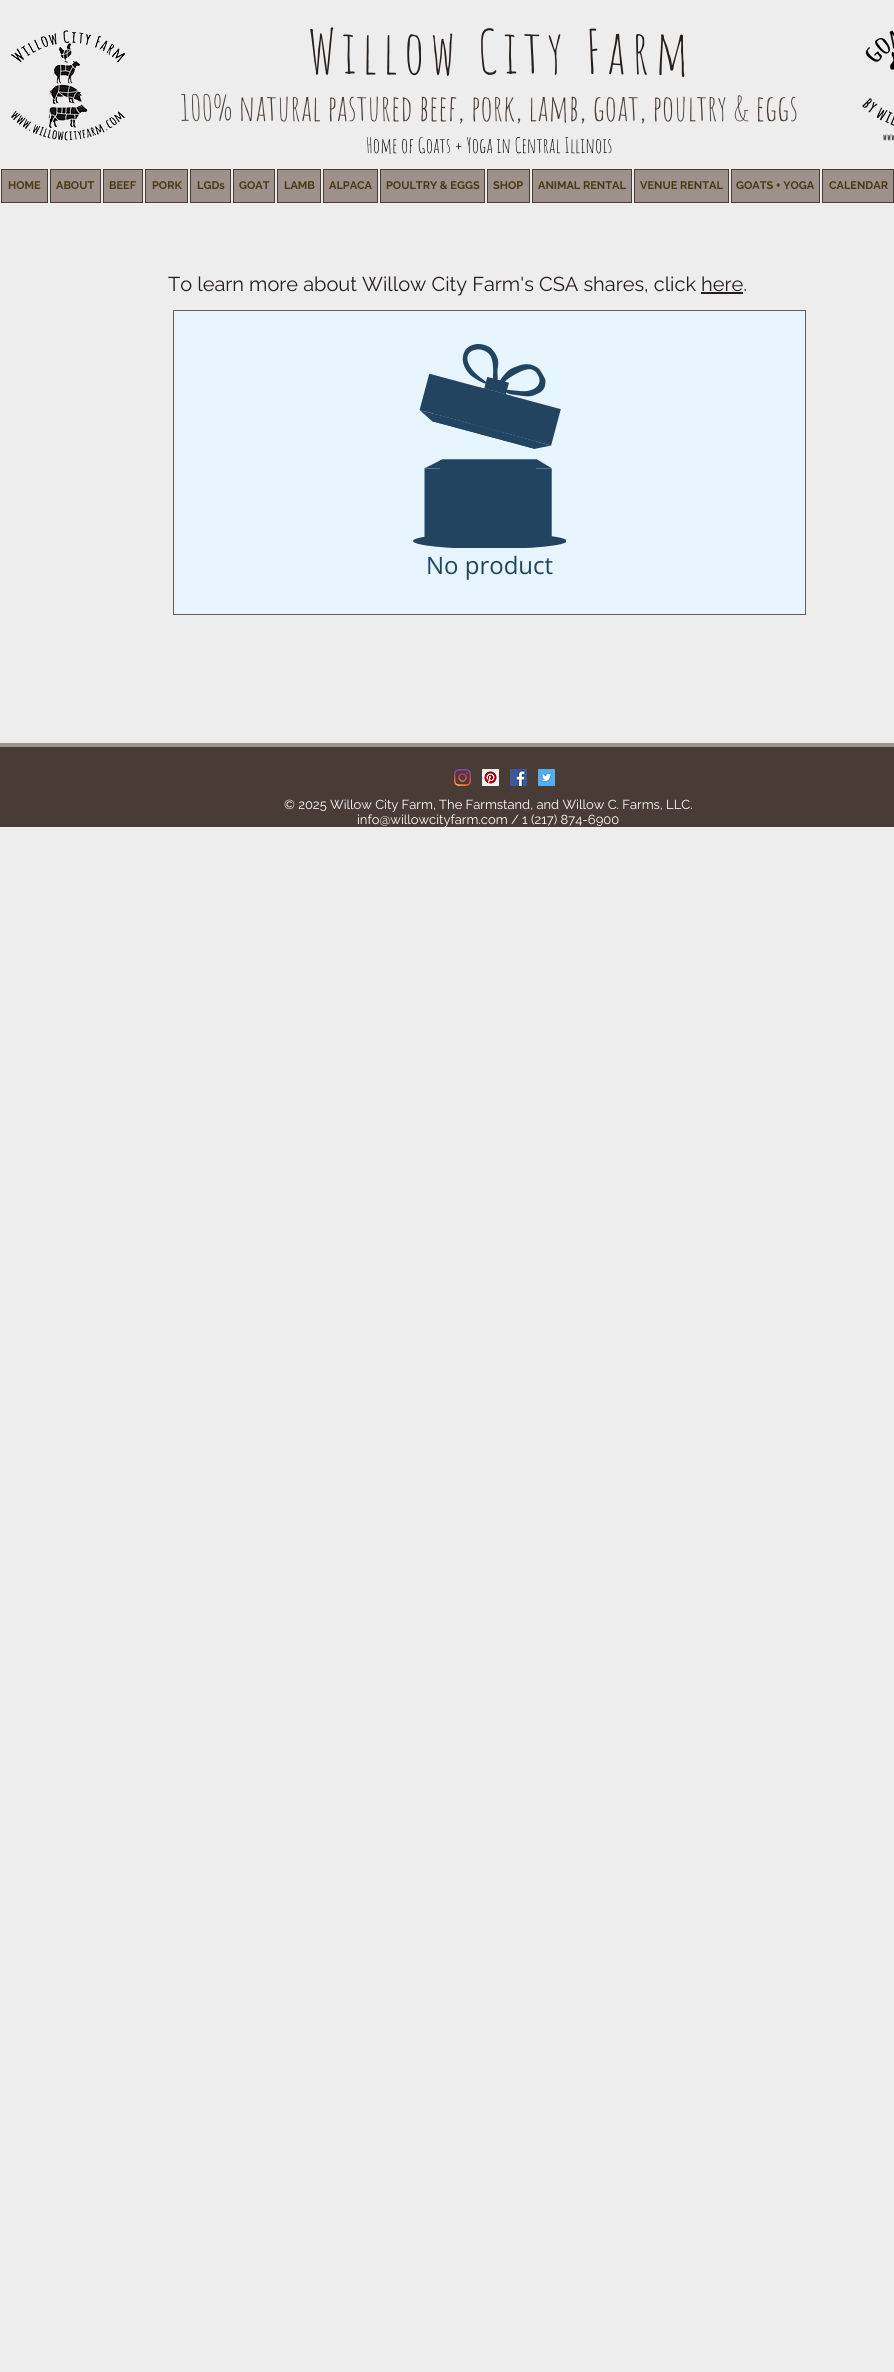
import math
import cairo

surface = cairo.ImageSurface(cairo.Format.RGB24, 894, 2372)
ctx = cairo.Context(surface)
options = cairo.FontOptions()
options.set_hint_metrics(cairo.HintMetrics.OFF)
options.set_hint_style(cairo.HintStyle.NONE)
ctx.set_font_options(options)
ctx.set_miter_limit(4)


def ink(r, g, b):
    ctx.set_source_rgb(r / 255, g / 255, b / 255)


def write(x, y, s, family, size, color, bold=False, italic=False):
    ctx.select_font_face(family, cairo.FontSlant.ITALIC if italic else cairo.FontSlant.NORMAL, cairo.FontWeight.BOLD if bold else cairo.FontWeight.NORMAL)
    ctx.set_font_size(size)
    ink(*color)
    ctx.move_to(x, y)
    ctx.show_text(s)


def write_spaced(x, y, s, letter, word):
    ctx.move_to(x, y)
    for ch in s:
        ctx.show_text(ch)
        ctx.rel_move_to(letter + word * (ch == ' '), 0)


def block(x, y, w, h, *color):
    ink(*color)
    ctx.rectangle(x, y, w, h)
    ctx.fill()


def paste(path, x, y, w, h):
    ctx.save()
    ctx.set_source_surface(cairo.ImageSurface.create_from_png(path), x, y)
    ctx.rectangle(x, y, w, h)
    ctx.fill()
    ctx.restore()


s1 = dict(family="Amatic SC", size=36, color=(73, 60, 54))
s2 = dict(family="Amatic SC", size=21, color=(0, 0, 0))
s3 = dict(family="Raleway", size=11, color=(74, 57, 20), bold=True)
s4 = dict(family="Raleway", size=20, color=(37, 30, 27))
s5 = dict(family="Open Sans", size=24, color=(35, 68, 96))
s6 = dict(family="Raleway", size=13, color=(255, 255, 255))

ink(237, 237, 237)
ctx.paint()
paste("pic1.png", 11, 30, 114, 111)
ctx.select_font_face("Amatic SC")
ctx.set_font_size(60)
ink(37, 30, 27)
write_spaced(308, 74, "Willow City Farm", 6, 0)
paste("pic2.png", 862, 30, 32, 111)
write(180, 121, "100% natural pastured beef, pork, lamb, goat, poultry & eggs", **s1)
write(366, 153, "Home of Goats + Yoga in Central Illinois", **s2)
ink(158, 144, 138)
ctx.rectangle(1.5, 169.5, 46, 33)
ctx.fill_preserve()
ink(73, 60, 54)
ctx.set_line_width(1)
ctx.stroke()
write(8, 189, "HOME", **s3)
ink(158, 144, 138)
ctx.rectangle(50.5, 169.5, 50, 33)
ctx.fill_preserve()
ink(73, 60, 54)
ctx.stroke()
write(56, 189, "ABOUT", **s3)
ink(158, 144, 138)
ctx.rectangle(103.5, 169.5, 39, 33)
ctx.fill_preserve()
ink(73, 60, 54)
ctx.stroke()
write(109, 189, "BEEF", **s3)
ink(158, 144, 138)
ctx.rectangle(145.5, 169.5, 42, 33)
ctx.fill_preserve()
ink(73, 60, 54)
ctx.stroke()
write(152, 189, "PORK", **s3)
ink(158, 144, 138)
ctx.rectangle(190.5, 169.5, 40, 33)
ctx.fill_preserve()
ink(73, 60, 54)
ctx.stroke()
write(197, 189, "LGDs", **s3)
ink(158, 144, 138)
ctx.rectangle(233.5, 169.5, 41, 33)
ctx.fill_preserve()
ink(73, 60, 54)
ctx.stroke()
write(239, 189, "GOAT", **s3)
ink(158, 144, 138)
ctx.rectangle(277.5, 169.5, 43, 33)
ctx.fill_preserve()
ink(73, 60, 54)
ctx.stroke()
write(284, 189, "LAMB", **s3)
ink(158, 144, 138)
ctx.rectangle(323.5, 169.5, 54, 33)
ctx.fill_preserve()
ink(73, 60, 54)
ctx.stroke()
write(329, 189, "ALPACA", **s3)
ink(158, 144, 138)
ctx.rectangle(380.5, 169.5, 104, 33)
ctx.fill_preserve()
ink(73, 60, 54)
ctx.stroke()
write(386, 189, "POULTRY & EGGS", **s3)
ink(158, 144, 138)
ctx.rectangle(487.5, 169.5, 42, 33)
ctx.fill_preserve()
ink(73, 60, 54)
ctx.stroke()
write(493, 189, "SHOP", **s3)
ink(158, 144, 138)
ctx.rectangle(532.5, 169.5, 99, 33)
ctx.fill_preserve()
ink(73, 60, 54)
ctx.stroke()
write(538, 189, "ANIMAL RENTAL", **s3)
ink(158, 144, 138)
ctx.rectangle(634.5, 169.5, 94, 33)
ctx.fill_preserve()
ink(73, 60, 54)
ctx.stroke()
write(640, 189, "VENUE RENTAL", **s3)
ink(158, 144, 138)
ctx.rectangle(731.5, 169.5, 88, 33)
ctx.fill_preserve()
ink(73, 60, 54)
ctx.stroke()
write(736, 189, "GOATS + YOGA", **s3)
ink(158, 144, 138)
ctx.rectangle(822.5, 169.5, 71, 33)
ctx.fill_preserve()
ink(73, 60, 54)
ctx.stroke()
write(829, 189, "CALENDAR", **s3)
write(168, 291, "To learn more about Willow City Farm's CSA shares, click here.", **s4)
block(701, 292, 42, 2, 37, 30, 27)
ctx.rectangle(173.5, 310.5, 632, 304)
ink(110, 90, 81)
ctx.stroke()
block(174, 311, 631, 303, 230, 245, 255)
paste("pic3.png", 413, 344, 153, 204)
write(426, 574, "No product", **s5)
block(0, 747, 894, 80, 73, 60, 54)
block(0, 743, 894, 4, 158, 144, 138)
paste("pic4.png", 454, 769, 17, 17)
paste("pic5.png", 482, 769, 17, 17)
paste("pic6.png", 510, 769, 17, 17)
paste("pic7.png", 538, 769, 17, 17)
write(284, 809, "© 2025 Willow City Farm, The Farmstand, and Willow C. Farms, LLC.", **s6)
write(357, 824, "info@willowcityfarm.com / 1 (217) 874-6900", **s6)
surface.write_to_png("screenshot.png")
